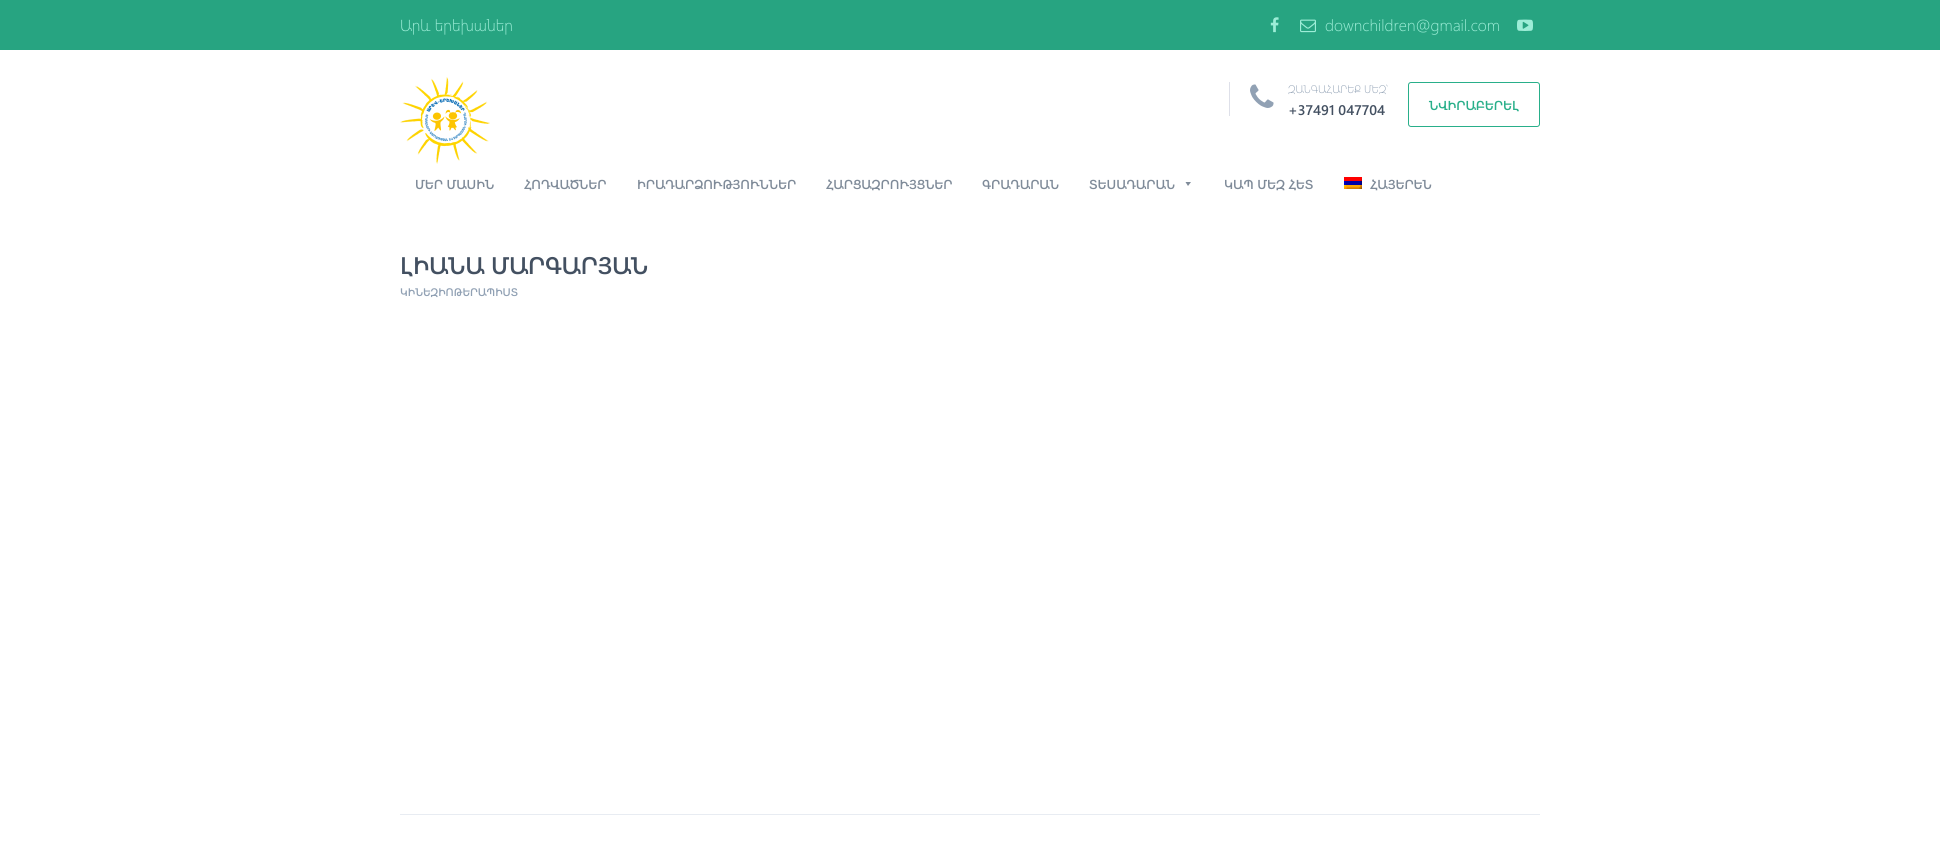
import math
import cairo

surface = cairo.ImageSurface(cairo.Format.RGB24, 1940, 849)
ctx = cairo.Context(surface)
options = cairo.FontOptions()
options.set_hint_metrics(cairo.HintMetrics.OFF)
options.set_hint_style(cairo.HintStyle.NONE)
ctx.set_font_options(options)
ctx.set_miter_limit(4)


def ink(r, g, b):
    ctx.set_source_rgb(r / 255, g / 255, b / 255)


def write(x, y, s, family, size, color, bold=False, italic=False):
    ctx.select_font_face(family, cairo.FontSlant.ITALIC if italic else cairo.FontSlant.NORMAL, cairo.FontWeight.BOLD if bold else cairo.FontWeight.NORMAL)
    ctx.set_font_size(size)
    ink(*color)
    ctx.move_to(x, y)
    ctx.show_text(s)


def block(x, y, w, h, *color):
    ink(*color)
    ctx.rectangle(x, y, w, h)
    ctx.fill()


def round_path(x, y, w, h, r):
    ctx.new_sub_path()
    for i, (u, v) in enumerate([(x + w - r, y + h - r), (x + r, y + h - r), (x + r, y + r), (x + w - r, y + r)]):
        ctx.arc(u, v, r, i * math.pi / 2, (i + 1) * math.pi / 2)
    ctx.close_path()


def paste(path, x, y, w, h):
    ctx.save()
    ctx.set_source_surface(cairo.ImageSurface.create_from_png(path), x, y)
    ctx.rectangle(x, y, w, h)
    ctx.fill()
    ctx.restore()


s1 = dict(family="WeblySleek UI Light", size=16, color=(157, 237, 215))
s2 = dict(family="WeblySleek UI Light", size=11, color=(145, 161, 180))
s3 = dict(family="WeblySleek UI SemiBold", size=14, color=(67, 80, 97))
s4 = dict(family="WeblySleek UI SemiBold", size=13, color=(41, 175, 138))
s5 = dict(family="WeblySleek UI SemiBold", size=13, color=(127, 139, 153))
s6 = dict(family="WeblySleek UI SemiBold", size=24, color=(67, 80, 97))
s7 = dict(family="WeblySleek UI SemiBold", size=11, color=(145, 161, 180))

ink(255, 255, 255)
ctx.paint()
block(0, 0, 1940, 50, 39, 164, 129)
write(400, 31, "Արև երեխաներ", **s1)
paste("pic1.png", 1270, 17, 9, 16)
paste("pic2.png", 1300, 19, 16, 14)
write(1325, 31, "downchildren@gmail.com", **s1)
paste("pic3.png", 1517, 19, 16, 12)
paste("pic4.png", 400, 77, 90, 87)
block(1229, 82, 1, 34, 222, 224, 233)
paste("pic5.png", 1250, 84, 24, 24)
write(1288, 93, "ԶԱՆԳԱՀԱՐԵՔ ՄԵԶ՝", **s2)
write(1288, 115, "+37491 047704", **s3)
round_path(1408.5, 82.5, 131, 44, 2.5)
ink(41, 175, 138)
ctx.set_line_width(1)
ctx.stroke()
write(1429, 110, "ՆՎԻՐԱԲԵՐԵԼ", **s4)
write(415, 189, "ՄԵՐ ՄԱՍԻՆ", **s5)
write(524, 189, "ՀՈԴՎԱԾՆԵՐ", **s5)
write(637, 189, "ԻՐԱԴԱՐՁՈՒԹՅՈՒՆՆԵՐ", **s5)
write(826, 189, "ՀԱՐՑԱԶՐՈՒՅՑՆԵՐ", **s5)
write(982, 189, "ԳՐԱԴԱՐԱՆ", **s5)
write(1089, 189, "ՏԵՍԱԴԱՐԱՆ", **s5)
ctx.new_path()
ctx.move_to(1191, 182)
ctx.line_to(1188, 186)
ctx.line_to(1185.5, 182)
ctx.close_path()
ctx.fill()
write(1224, 189, "ԿԱՊ ՄԵԶ ՀԵՏ", **s5)
paste("pic6.png", 1344, 177, 18, 12)
write(1370, 189, "ՀԱՅԵՐԵՆ", **s5)
write(400, 274, "ԼԻԱՆԱ ՄԱՐԳԱՐՅԱՆ", **s6)
write(400, 296, "ԿԻՆԵԶԻՈԹԵՐԱՊԻՍՏ", **s7)
block(400, 814, 1140, 1, 232, 236, 242)
surface.write_to_png("screenshot.png")
